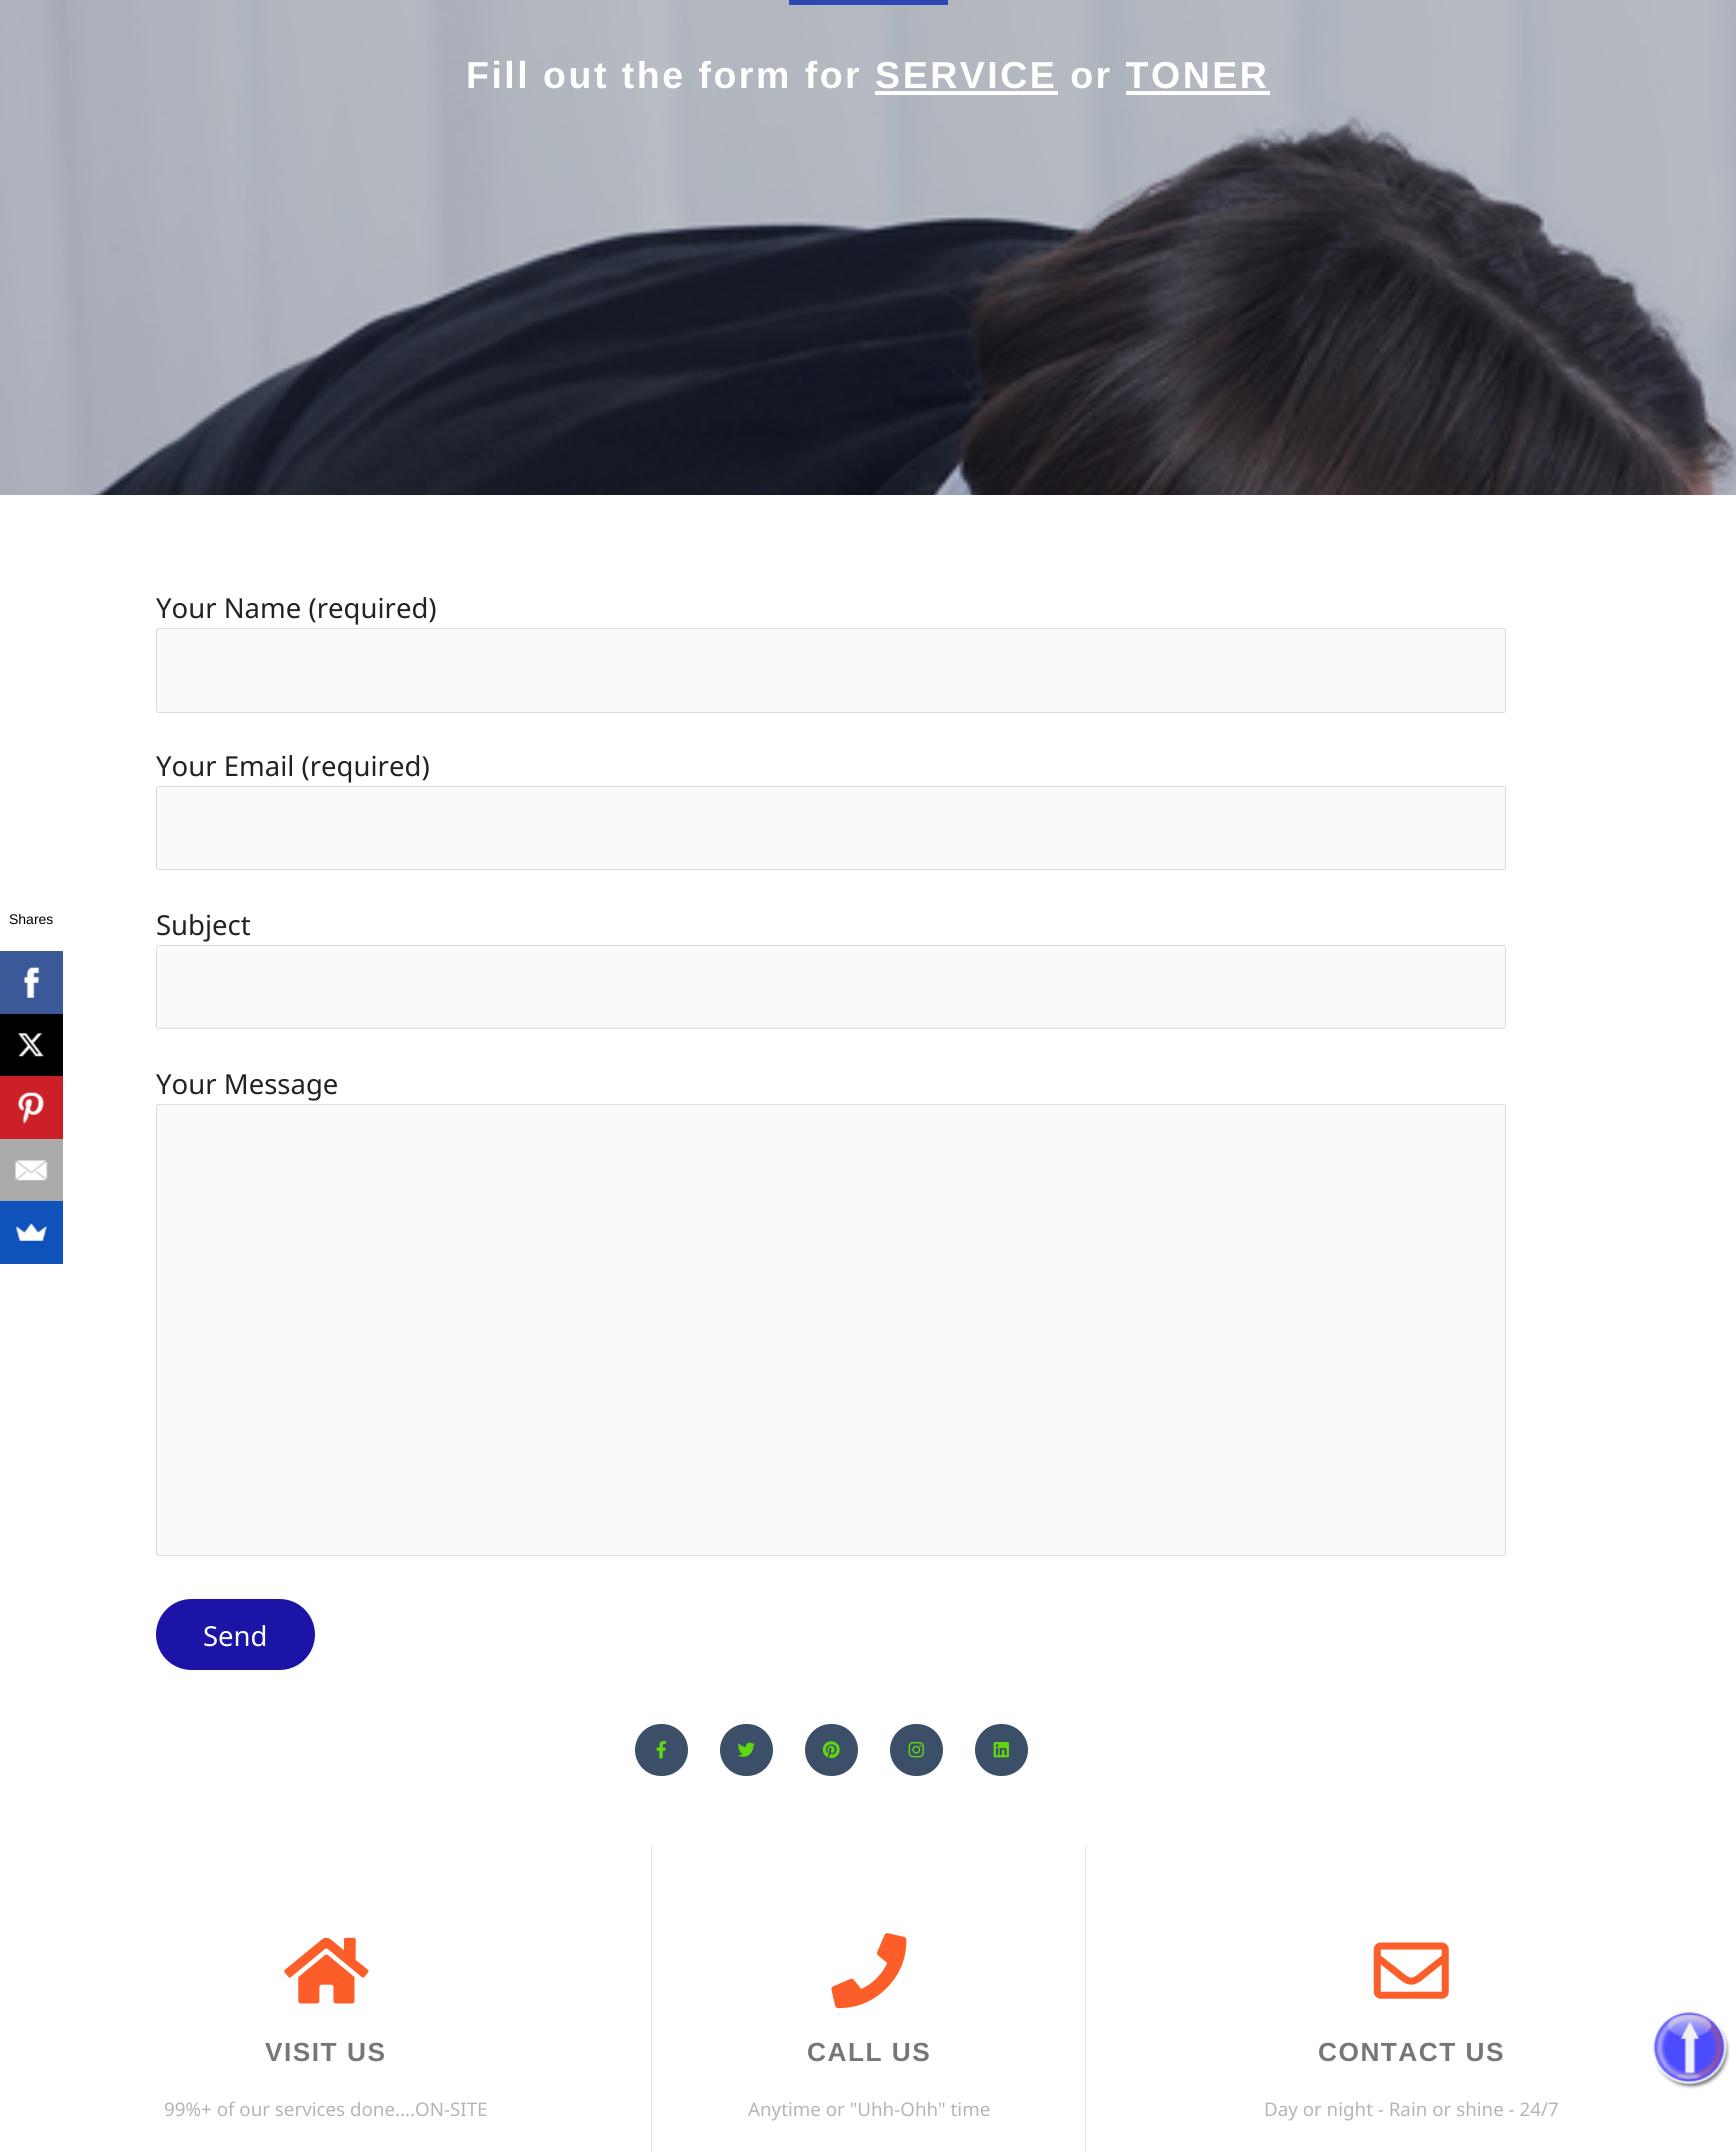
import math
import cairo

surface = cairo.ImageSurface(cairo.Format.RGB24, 1736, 2152)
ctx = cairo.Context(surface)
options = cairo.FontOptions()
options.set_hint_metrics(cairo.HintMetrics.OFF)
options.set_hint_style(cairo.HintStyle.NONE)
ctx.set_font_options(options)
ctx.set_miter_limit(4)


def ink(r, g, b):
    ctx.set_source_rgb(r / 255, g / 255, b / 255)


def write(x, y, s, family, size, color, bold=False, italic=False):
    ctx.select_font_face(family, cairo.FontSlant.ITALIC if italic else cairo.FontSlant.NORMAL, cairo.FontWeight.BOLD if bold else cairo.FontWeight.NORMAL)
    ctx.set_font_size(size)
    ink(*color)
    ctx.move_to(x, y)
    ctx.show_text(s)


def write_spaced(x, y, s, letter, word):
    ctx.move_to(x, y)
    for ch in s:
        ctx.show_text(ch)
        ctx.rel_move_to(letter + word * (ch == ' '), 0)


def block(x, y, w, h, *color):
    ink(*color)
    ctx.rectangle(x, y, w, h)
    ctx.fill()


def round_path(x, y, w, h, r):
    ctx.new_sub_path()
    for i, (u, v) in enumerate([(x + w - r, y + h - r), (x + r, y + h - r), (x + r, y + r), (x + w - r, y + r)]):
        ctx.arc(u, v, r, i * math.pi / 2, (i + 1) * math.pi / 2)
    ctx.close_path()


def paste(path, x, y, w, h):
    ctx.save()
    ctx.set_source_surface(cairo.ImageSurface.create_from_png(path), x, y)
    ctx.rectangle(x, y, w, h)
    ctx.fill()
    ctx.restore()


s1 = dict(family="Liberation Sans", size=14, color=(0, 0, 0))
s2 = dict(family="Noto Sans", size=27.5, color=(34, 34, 34))
s3 = dict(family="Noto Sans", size=27.5, color=(255, 255, 255))
s4 = dict(family="Noto Sans", size=18.75, color=(181, 181, 181))

ink(255, 255, 255)
ctx.paint()
write(9, 924, "Shares", **s1)
block(0, 951, 63, 63, 59, 89, 152)
paste("pic1.png", 24, 967, 16, 31)
block(0, 1014, 63, 62, 0, 0, 0)
paste("pic2.png", 17, 1033, 27, 24)
block(0, 1076, 63, 63, 203, 32, 39)
paste("pic3.png", 18, 1092, 26, 32)
block(0, 1139, 63, 62, 170, 170, 170)
paste("pic4.png", 15, 1160, 33, 21)
block(0, 1201, 63, 63, 15, 82, 186)
paste("pic5.png", 15, 1223, 32, 18)
paste("pic6.png", 0, 0, 1736, 495)
ctx.set_source_rgba(0.067, 0.184, 0.698, 0.82)
ctx.rectangle(789, 0, 159, 5)
ctx.fill()
ctx.select_font_face("Liberation Sans", cairo.FontSlant.NORMAL, cairo.FontWeight.BOLD)
ctx.set_font_size(37.5)
ink(255, 255, 255)
write_spaced(466, 88, "Fill out the form for SERVICE or TONER", 2.5, 0)
block(875, 91, 183, 4, 255, 255, 255)
block(1126, 91, 144, 4, 255, 255, 255)
write(156, 618, "Your Name (required)", **s2)
ink(250, 250, 250)
round_path(156.5, 628.5, 1349, 84, 2)
ctx.fill_preserve()
ink(221, 221, 221)
ctx.set_line_width(1)
ctx.stroke()
write(156, 776, "Your Email (required)", **s2)
ink(250, 250, 250)
round_path(156.5, 786.5, 1349, 83, 2)
ctx.fill_preserve()
ink(221, 221, 221)
ctx.stroke()
write(156, 935, "Subject", **s2)
ink(250, 250, 250)
round_path(156.5, 945.5, 1349, 83, 2)
ctx.fill_preserve()
ink(221, 221, 221)
ctx.stroke()
write(156, 1094, "Your Message", **s2)
ink(250, 250, 250)
round_path(156.5, 1104.5, 1349, 451, 2)
ctx.fill_preserve()
ink(221, 221, 221)
ctx.stroke()
ink(27, 20, 166)
round_path(156, 1599, 159, 71, 35.5)
ctx.fill()
write(203, 1646, "Send", **s3)
ink(59, 79, 104)
round_path(635, 1724, 53, 52, 26)
ctx.fill()
paste("pic7.png", 656, 1740, 10, 19)
round_path(720, 1724, 53, 52, 26)
ctx.fill()
paste("pic8.png", 737, 1742, 18, 15)
round_path(805, 1724, 53, 52, 26)
ctx.fill()
paste("pic9.png", 822, 1741, 18, 18)
round_path(890, 1724, 53, 52, 26)
ctx.fill()
paste("pic10.png", 908, 1742, 16, 16)
round_path(975, 1724, 53, 52, 26)
ctx.fill()
paste("pic11.png", 993, 1742, 16, 16)
paste("pic12.png", 284, 1937, 85, 67)
ctx.select_font_face("Liberation Sans", cairo.FontSlant.NORMAL, cairo.FontWeight.BOLD)
ctx.set_font_size(26.25)
ink(119, 119, 119)
write_spaced(265, 2061, "VISIT US", 1.5, 0)
write(164, 2116, "99%+ of our services done....ON-SITE", **s4)
block(1085, 1846, 1, 306, 226, 226, 226)
block(651, 1846, 1, 306, 226, 226, 226)
paste("pic13.png", 831, 1933, 76, 76)
ctx.select_font_face("Liberation Sans", cairo.FontSlant.NORMAL, cairo.FontWeight.BOLD)
ctx.set_font_size(26.25)
ink(119, 119, 119)
write_spaced(807, 2061, "CALL US", 1.5, 0)
write(748, 2116, "Anytime or \"Uhh-Ohh\" time", **s4)
paste("pic14.png", 1373, 1942, 76, 57)
ctx.select_font_face("Liberation Sans", cairo.FontSlant.NORMAL, cairo.FontWeight.BOLD)
ctx.set_font_size(26.25)
ink(119, 119, 119)
write_spaced(1318, 2061, "CONTACT US", 1.5, 0)
write(1264, 2116, "Day or night - Rain or shine - 24/7", **s4)
paste("pic15.png", 1653, 2012, 77, 77)
surface.write_to_png("screenshot.png")
